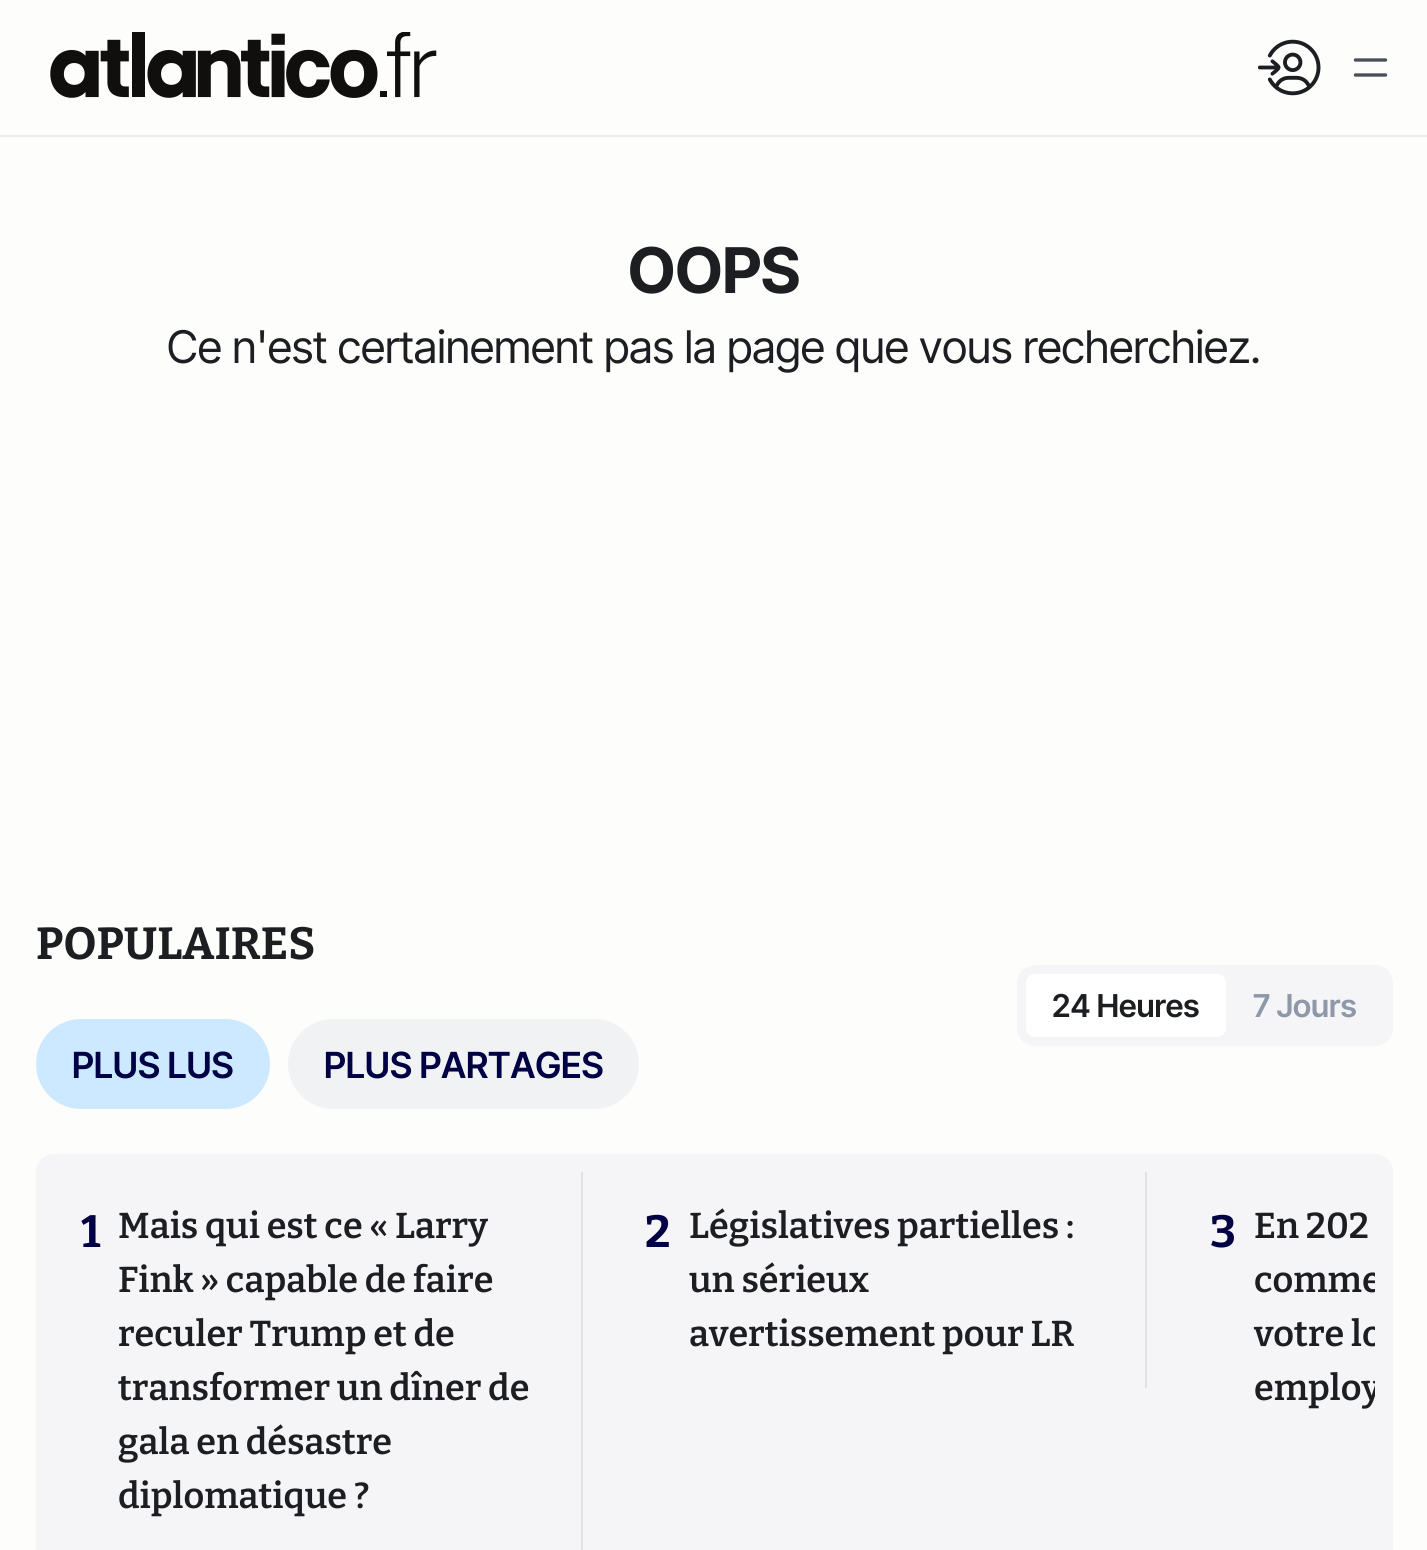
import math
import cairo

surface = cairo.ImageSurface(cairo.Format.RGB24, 1427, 1550)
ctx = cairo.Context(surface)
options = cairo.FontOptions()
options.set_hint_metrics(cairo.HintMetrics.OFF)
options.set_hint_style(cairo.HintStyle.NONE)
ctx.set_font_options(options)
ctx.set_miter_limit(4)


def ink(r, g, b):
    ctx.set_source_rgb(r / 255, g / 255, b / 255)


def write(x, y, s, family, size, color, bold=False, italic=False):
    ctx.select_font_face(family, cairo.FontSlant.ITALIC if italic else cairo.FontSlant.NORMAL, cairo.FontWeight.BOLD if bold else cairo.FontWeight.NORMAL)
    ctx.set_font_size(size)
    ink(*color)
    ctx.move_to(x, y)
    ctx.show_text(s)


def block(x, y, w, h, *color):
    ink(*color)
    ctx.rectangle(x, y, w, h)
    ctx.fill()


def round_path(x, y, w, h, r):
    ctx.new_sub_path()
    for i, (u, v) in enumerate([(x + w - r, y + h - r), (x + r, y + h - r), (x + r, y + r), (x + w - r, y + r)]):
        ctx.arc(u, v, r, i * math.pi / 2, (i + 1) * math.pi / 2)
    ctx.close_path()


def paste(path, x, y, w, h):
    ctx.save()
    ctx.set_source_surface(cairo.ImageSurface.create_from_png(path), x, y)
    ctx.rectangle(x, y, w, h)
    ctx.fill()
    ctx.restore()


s1 = dict(family="Inter Tight", size=63, color=(28, 30, 34), bold=True)
s2 = dict(family="Inter Tight", size=45, color=(28, 30, 34))
s3 = dict(family="Bitter", size=45, color=(28, 30, 34), bold=True)
s4 = dict(family="Inter Tight SemiBold", size=36, color=(0, 0, 68))
s5 = dict(family="Inter Tight SemiBold", size=31.5, color=(28, 30, 34))
s6 = dict(family="Inter Tight SemiBold", size=31.5, color=(142, 152, 168))
s7 = dict(family="Bitter", size=45, color=(0, 0, 68), bold=True)
s8 = dict(family="Bitter SemiBold", size=36, color=(28, 30, 34))

ink(253, 253, 252)
ctx.paint()
block(0, 135, 1427, 2, 235, 235, 240)
paste("pic1.png", 50, 32, 387, 66)
paste("pic2.png", 1258, 39, 63, 57)
ctx.new_path()
ctx.move_to(1355.5, 60)
ctx.line_to(1385.5, 60)
ctx.move_to(1355.5, 75)
ctx.line_to(1385.5, 75)
ink(73, 79, 90)
ctx.set_line_width(3.4)
ctx.set_line_cap(cairo.LineCap.ROUND)
ctx.set_line_join(cairo.LineJoin.ROUND)
ctx.stroke()
write(628, 293, "OOPS", **s1)
write(167, 363, "Ce n'est certainement pas la page que vous recherchiez.", **s2)
write(36, 959, "POPULAIRES", **s3)
ink(204, 233, 255)
round_path(36, 1019, 234, 90, 45)
ctx.fill()
write(72, 1078, "PLUS LUS", **s4)
ink(241, 242, 244)
round_path(288, 1019, 351, 90, 45)
ctx.fill()
write(324, 1078, "PLUS PARTAGES", **s4)
ink(245, 245, 248)
round_path(1017, 965, 376, 81, 18)
ctx.fill()
ink(255, 255, 255)
round_path(1026, 974, 200, 63, 9)
ctx.fill()
write(1052, 1017, "24 Heures", **s5)
write(1253, 1017, "7 Jours", **s6)
ink(245, 245, 248)
round_path(36, 1154, 1357, 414, 18)
ctx.fill()
block(581, 1172, 2, 378, 224, 226, 230)
write(81, 1247, "1", **s7)
write(118, 1238, "Mais qui est ce « Larry", **s8)
write(118, 1292, "Fink » capable de faire", **s8)
write(118, 1346, "reculer Trump et de", **s8)
write(118, 1400, "transformer un dîner de", **s8)
write(118, 1454, "gala en désastre", **s8)
write(118, 1508, "diplomatique ?", **s8)
block(1145, 1172, 2, 216, 224, 226, 230)
write(645, 1247, "2", **s7)
write(689, 1238, "Législatives partielles :", **s8)
write(689, 1292, "un sérieux", **s8)
write(689, 1346, "avertissement pour LR", **s8)
write(1210, 1247, "3", **s7)
write(1254, 1238, "En 202", **s8)
ctx.save()
ctx.rectangle(54, 1172, 1321, 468)
ctx.clip()
write(1254, 1292, "comme", **s8)
write(1254, 1346, "votre lo", **s8)
write(1254, 1400, "employ", **s8)
ctx.restore()
surface.write_to_png("screenshot.png")
